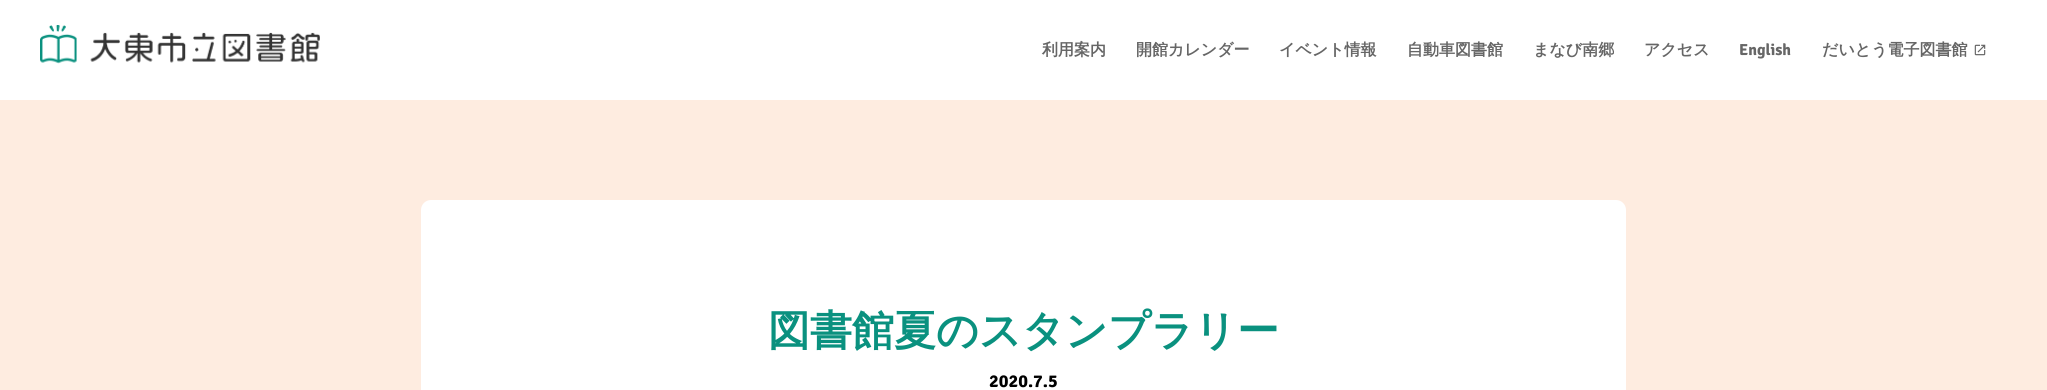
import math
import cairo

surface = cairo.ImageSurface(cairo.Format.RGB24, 2047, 390)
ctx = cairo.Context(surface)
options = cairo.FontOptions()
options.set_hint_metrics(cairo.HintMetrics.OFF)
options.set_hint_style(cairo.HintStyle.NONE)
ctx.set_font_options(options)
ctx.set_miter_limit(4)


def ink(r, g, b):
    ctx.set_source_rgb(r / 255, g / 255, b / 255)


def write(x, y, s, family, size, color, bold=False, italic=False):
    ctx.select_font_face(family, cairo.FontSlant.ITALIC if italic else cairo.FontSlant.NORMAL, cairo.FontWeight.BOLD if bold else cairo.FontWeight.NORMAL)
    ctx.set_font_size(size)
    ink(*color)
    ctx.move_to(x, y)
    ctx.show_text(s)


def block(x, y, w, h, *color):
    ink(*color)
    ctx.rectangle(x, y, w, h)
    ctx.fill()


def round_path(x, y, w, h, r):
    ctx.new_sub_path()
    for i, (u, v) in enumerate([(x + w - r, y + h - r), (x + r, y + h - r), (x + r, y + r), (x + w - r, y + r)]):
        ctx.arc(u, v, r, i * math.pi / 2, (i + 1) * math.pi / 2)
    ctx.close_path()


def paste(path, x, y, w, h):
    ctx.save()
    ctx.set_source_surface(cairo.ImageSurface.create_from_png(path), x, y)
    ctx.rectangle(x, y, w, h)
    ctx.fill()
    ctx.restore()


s1 = dict(family="WenQuanYi Zen Hei", size=16, color=(102, 102, 102), bold=True)
s2 = dict(family="Signika", size=16, color=(102, 102, 102), bold=True)
s3 = dict(family="WenQuanYi Zen Hei", size=42, color=(10, 145, 127), bold=True)
s4 = dict(family="Signika", size=18, color=(0, 0, 0), bold=True)

ink(255, 255, 255)
ctx.paint()
paste("pic1.png", 40, 25, 280, 39)
write(1042, 55, "利用案内", **s1)
write(1136, 55, "開館カレンダー", **s1)
write(1279, 55, "イベント情報", **s1)
write(1407, 55, "自動車図書館", **s1)
write(1533, 55, "まなび南郷", **s1)
write(1644, 55, "アクセス", **s1)
write(1739, 55, "English", **s2)
write(1822, 55, "だいとう電子図書館", **s1)
paste("pic2.png", 1974, 44, 12, 12)
block(0, 100, 2047, 290, 254, 236, 224)
ink(255, 255, 255)
round_path(421, 200, 1205, 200, 10)
ctx.fill()
write(768, 345, "図書館夏のスタンプラリー", **s3)
write(989, 387, "2020.7.5", **s4)
surface.write_to_png("screenshot.png")
